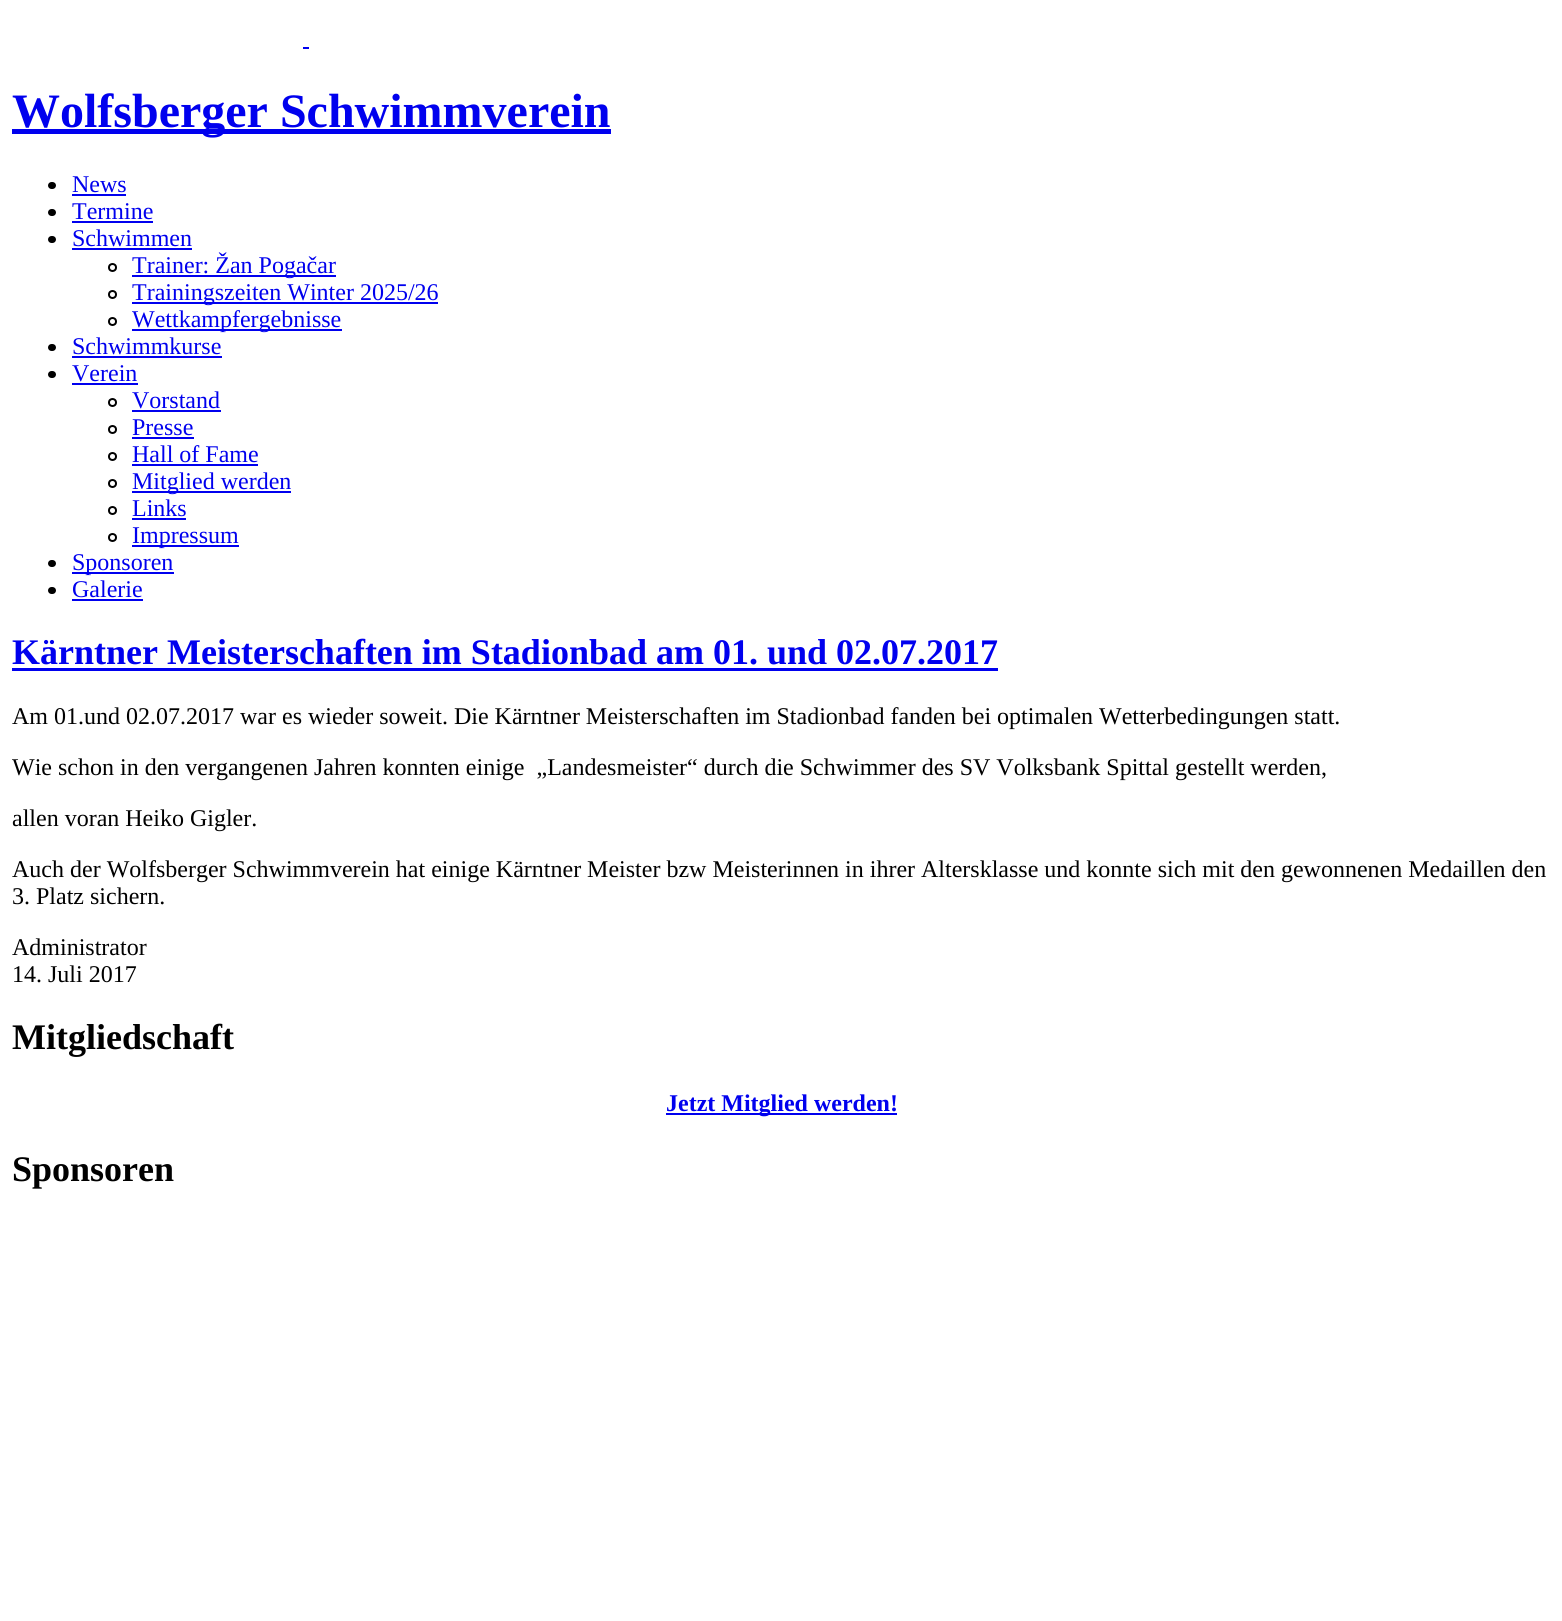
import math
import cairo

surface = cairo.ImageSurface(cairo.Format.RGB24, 1562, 1621)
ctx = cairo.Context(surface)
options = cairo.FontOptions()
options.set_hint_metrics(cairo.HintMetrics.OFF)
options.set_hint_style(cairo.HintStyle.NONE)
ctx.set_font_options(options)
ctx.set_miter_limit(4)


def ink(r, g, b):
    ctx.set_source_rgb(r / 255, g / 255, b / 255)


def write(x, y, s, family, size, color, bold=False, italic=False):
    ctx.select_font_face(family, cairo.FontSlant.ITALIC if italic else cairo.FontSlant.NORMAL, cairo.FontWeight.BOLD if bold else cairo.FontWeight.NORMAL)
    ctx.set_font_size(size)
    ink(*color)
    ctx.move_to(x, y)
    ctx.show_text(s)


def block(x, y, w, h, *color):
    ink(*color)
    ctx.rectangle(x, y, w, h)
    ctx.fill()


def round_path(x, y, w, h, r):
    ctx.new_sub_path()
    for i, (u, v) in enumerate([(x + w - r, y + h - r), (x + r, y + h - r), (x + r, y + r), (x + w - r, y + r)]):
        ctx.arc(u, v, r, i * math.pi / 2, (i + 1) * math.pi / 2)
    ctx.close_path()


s1 = dict(family="Liberation Serif", size=48, color=(0, 0, 238), bold=True)
s2 = dict(family="Liberation Serif", size=24, color=(0, 0, 238))
s3 = dict(family="Liberation Serif", size=36, color=(0, 0, 238), bold=True)
s4 = dict(family="Liberation Serif", size=24, color=(0, 0, 0))
s5 = dict(family="Liberation Serif", size=36, color=(0, 0, 0), bold=True)
s6 = dict(family="Liberation Serif", size=24, color=(0, 0, 238), bold=True)

ink(255, 255, 255)
ctx.paint()
block(303, 47, 6, 2, 0, 0, 238)
block(12, 129, 599, 5, 0, 0, 238)
write(12, 127, "Wolfsberger Schwimmverein", **s1)
ink(0, 0, 0)
round_path(48, 182, 8, 7, 3.5)
ctx.fill()
write(72, 192, "News", **s2)
block(72, 194, 54, 2, 0, 0, 238)
ink(0, 0, 0)
round_path(48, 209, 8, 7, 3.5)
ctx.fill()
write(72, 219, "Termine", **s2)
block(72, 221, 81, 2, 0, 0, 238)
ink(0, 0, 0)
round_path(48, 236, 8, 7, 3.5)
ctx.fill()
write(72, 246, "Schwimmen", **s2)
block(72, 248, 120, 2, 0, 0, 238)
ctx.new_path()
ctx.arc(112.5, 267.5, 3.5, 0, 2 * math.pi)
ink(0, 0, 0)
ctx.stroke()
block(132, 275, 204, 2, 0, 0, 238)
write(132, 273, "Trainer: Žan Pogačar", **s2)
ctx.new_path()
ctx.arc(112.5, 294.5, 3.5, 0, 2 * math.pi)
ink(0, 0, 0)
ctx.stroke()
block(132, 302, 306, 2, 0, 0, 238)
write(132, 300, "Trainingszeiten Winter 2025/26", **s2)
ctx.new_path()
ctx.arc(112.5, 321.5, 3.5, 0, 2 * math.pi)
ink(0, 0, 0)
ctx.stroke()
block(132, 329, 210, 2, 0, 0, 238)
write(132, 327, "Wettkampfergebnisse", **s2)
ink(0, 0, 0)
round_path(48, 344, 8, 7, 3.5)
ctx.fill()
write(72, 354, "Schwimmkurse", **s2)
block(72, 356, 150, 2, 0, 0, 238)
ink(0, 0, 0)
round_path(48, 371, 8, 7, 3.5)
ctx.fill()
write(72, 381, "Verein", **s2)
block(72, 383, 66, 2, 0, 0, 238)
ctx.new_path()
ctx.arc(112.5, 402.5, 3.5, 0, 2 * math.pi)
ink(0, 0, 0)
ctx.stroke()
write(132, 408, "Vorstand", **s2)
block(132, 410, 89, 2, 0, 0, 238)
ctx.new_path()
ctx.arc(112.5, 429.5, 3.5, 0, 2 * math.pi)
ink(0, 0, 0)
ctx.stroke()
write(132, 435, "Presse", **s2)
block(132, 437, 62, 2, 0, 0, 238)
ctx.new_path()
ctx.arc(112.5, 456.5, 3.5, 0, 2 * math.pi)
ink(0, 0, 0)
ctx.stroke()
write(132, 462, "Hall of Fame", **s2)
block(132, 464, 126, 2, 0, 0, 238)
ctx.new_path()
ctx.arc(112.5, 483.5, 3.5, 0, 2 * math.pi)
ink(0, 0, 0)
ctx.stroke()
block(132, 491, 159, 2, 0, 0, 238)
write(132, 489, "Mitglied werden", **s2)
ctx.new_path()
ctx.arc(112.5, 510.5, 3.5, 0, 2 * math.pi)
ink(0, 0, 0)
ctx.stroke()
write(132, 516, "Links", **s2)
block(132, 518, 54, 2, 0, 0, 238)
ctx.new_path()
ctx.arc(112.5, 537.5, 3.5, 0, 2 * math.pi)
ink(0, 0, 0)
ctx.stroke()
block(132, 545, 107, 2, 0, 0, 238)
write(132, 543, "Impressum", **s2)
ink(0, 0, 0)
round_path(48, 560, 8, 7, 3.5)
ctx.fill()
block(72, 572, 102, 2, 0, 0, 238)
write(72, 570, "Sponsoren", **s2)
ink(0, 0, 0)
round_path(48, 587, 8, 7, 3.5)
ctx.fill()
write(72, 597, "Galerie", **s2)
block(72, 599, 71, 2, 0, 0, 238)
write(12, 664, "Kärntner Meisterschaften im Stadionbad am 01. und 02.07.2017", **s3)
block(12, 668, 986, 3, 0, 0, 238)
write(12, 724, "Am 01.und 02.07.2017 war es wieder soweit. Die Kärntner Meisterschaften im Stadionbad fanden bei optimalen Wetterbedingungen statt.", **s4)
write(12, 775, "Wie schon in den vergangenen Jahren konnten einige  „Landesmeister“ durch die Schwimmer des SV Volksbank Spittal gestellt werden,", **s4)
write(12, 826, "allen voran Heiko Gigler.", **s4)
write(12, 877, "Auch der Wolfsberger Schwimmverein hat einige Kärntner Meister bzw Meisterinnen in ihrer Altersklasse und konnte sich mit den gewonnenen Medaillen den", **s4)
write(12, 904, "3. Platz sichern.", **s4)
write(12, 955, "Administrator", **s4)
write(12, 982, "14. Juli 2017", **s4)
write(12, 1049, "Mitgliedschaft", **s5)
block(666, 1113, 231, 2, 0, 0, 238)
write(666, 1111, "Jetzt Mitglied werden!", **s6)
write(12, 1181, "Sponsoren", **s5)
surface.write_to_png("screenshot.png")
